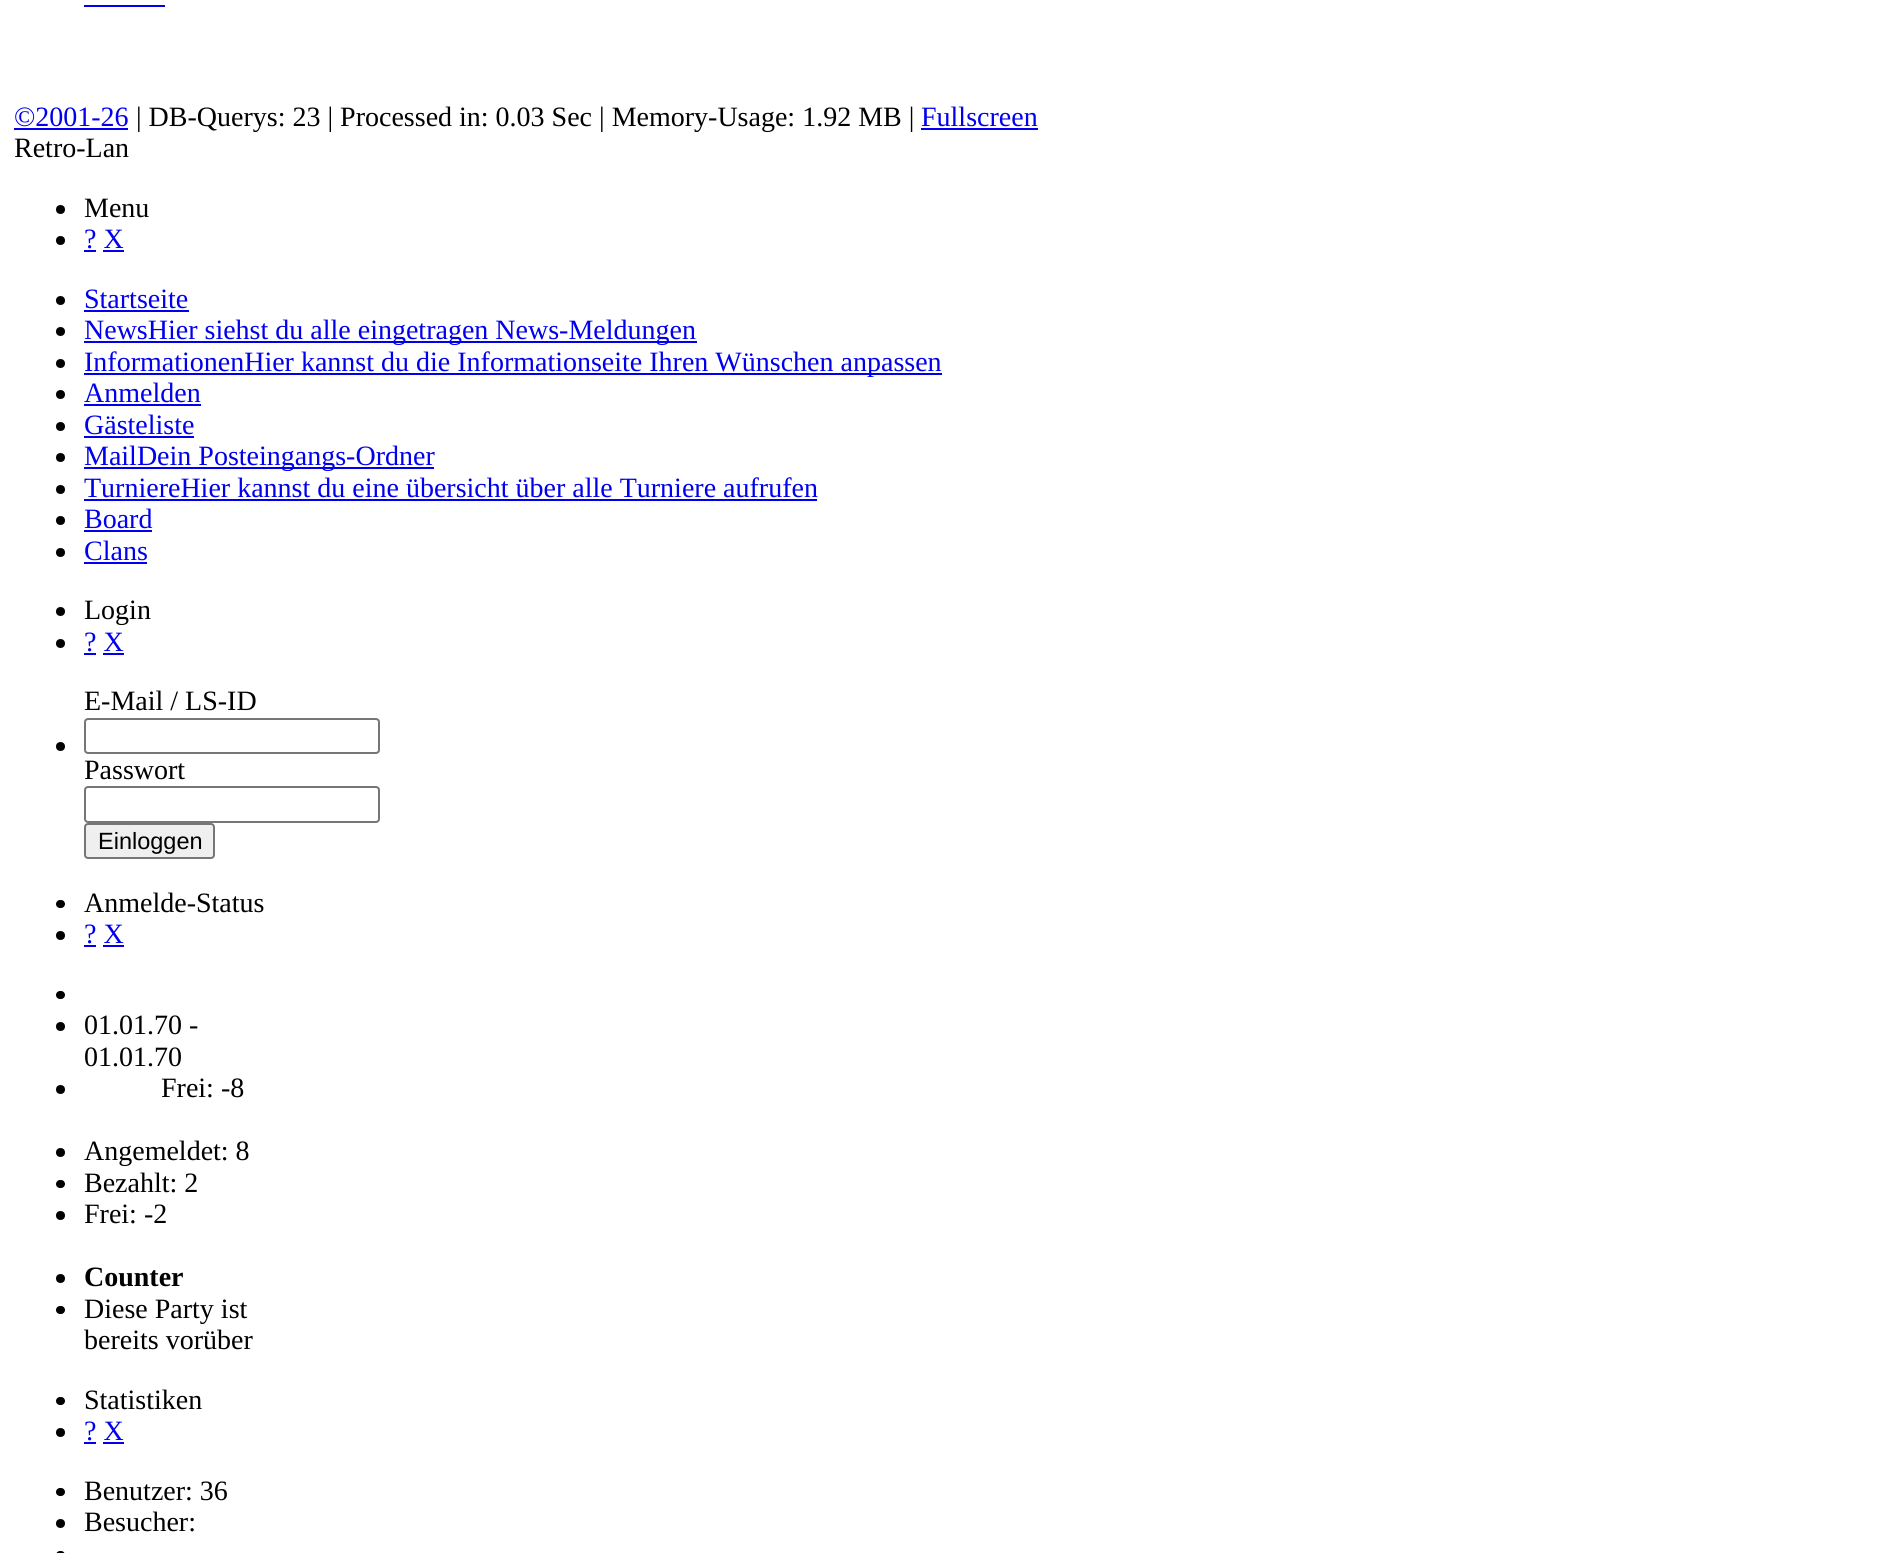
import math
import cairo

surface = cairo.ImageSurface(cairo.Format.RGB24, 1881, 1553)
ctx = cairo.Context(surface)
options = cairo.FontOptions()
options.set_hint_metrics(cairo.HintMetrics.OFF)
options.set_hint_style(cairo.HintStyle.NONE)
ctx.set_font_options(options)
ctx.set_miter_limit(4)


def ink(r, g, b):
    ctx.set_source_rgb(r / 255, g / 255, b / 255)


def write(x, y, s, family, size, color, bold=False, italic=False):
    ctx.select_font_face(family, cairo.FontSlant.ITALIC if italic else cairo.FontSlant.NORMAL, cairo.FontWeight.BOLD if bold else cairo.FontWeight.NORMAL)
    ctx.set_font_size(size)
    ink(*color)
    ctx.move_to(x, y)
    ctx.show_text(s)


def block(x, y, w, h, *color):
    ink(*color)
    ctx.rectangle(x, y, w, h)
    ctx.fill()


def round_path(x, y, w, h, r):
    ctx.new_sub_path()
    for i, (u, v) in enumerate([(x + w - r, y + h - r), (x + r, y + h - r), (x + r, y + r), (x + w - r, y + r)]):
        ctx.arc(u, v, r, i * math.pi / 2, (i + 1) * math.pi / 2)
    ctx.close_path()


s1 = dict(family="Liberation Serif", size=28, color=(0, 0, 238))
s2 = dict(family="Liberation Serif", size=28, color=(0, 0, 0))
s3 = dict(family="Liberation Sans", size=23.5, color=(0, 0, 0))
s4 = dict(family="Liberation Serif", size=28, color=(0, 0, 0), bold=True)

ink(255, 255, 255)
ctx.paint()
block(84, 5, 81, 2, 0, 0, 238)
write(14, 126, "©2001-26", **s1)
block(14, 128, 114, 2, 0, 0, 238)
write(136, 126, "| DB-Querys: 23 | Processed in: 0.03 Sec | Memory-Usage: 1.92 MB |", **s2)
write(921, 126, "Fullscreen", **s1)
block(921, 128, 117, 2, 0, 0, 238)
write(14, 157, "Retro-Lan", **s2)
ctx.new_path()
ctx.arc(60.5, 209.5, 4.5, 0, 2 * math.pi)
ctx.fill()
write(84, 217, "Menu", **s2)
ctx.new_path()
ctx.arc(60.5, 240.5, 4.5, 0, 2 * math.pi)
ctx.fill()
write(84, 248, "? X", **s1)
block(84, 250, 12, 2, 0, 0, 238)
block(103, 250, 21, 2, 0, 0, 238)
ink(0, 0, 0)
ctx.new_path()
ctx.arc(60.5, 300.5, 4.5, 0, 2 * math.pi)
ctx.fill()
write(84, 308, "Startseite", **s1)
block(84, 310, 105, 2, 0, 0, 238)
ink(0, 0, 0)
ctx.new_path()
ctx.arc(60.5, 331.5, 4.5, 0, 2 * math.pi)
ctx.fill()
block(84, 341, 613, 2, 0, 0, 238)
write(84, 339, "NewsHier siehst du alle eingetragen News-Meldungen", **s1)
ink(0, 0, 0)
ctx.new_path()
ctx.arc(60.5, 363.5, 4.5, 0, 2 * math.pi)
ctx.fill()
block(84, 373, 858, 2, 0, 0, 238)
write(84, 371, "InformationenHier kannst du die Informationseite Ihren Wünschen anpassen", **s1)
ink(0, 0, 0)
ctx.new_path()
ctx.arc(60.5, 394.5, 4.5, 0, 2 * math.pi)
ctx.fill()
write(84, 402, "Anmelden", **s1)
block(84, 404, 117, 2, 0, 0, 238)
ink(0, 0, 0)
ctx.new_path()
ctx.arc(60.5, 426.5, 4.5, 0, 2 * math.pi)
ctx.fill()
write(84, 434, "Gästeliste", **s1)
block(84, 436, 110, 2, 0, 0, 238)
ink(0, 0, 0)
ctx.new_path()
ctx.arc(60.5, 457.5, 4.5, 0, 2 * math.pi)
ctx.fill()
block(84, 467, 350, 2, 0, 0, 238)
write(84, 465, "MailDein Posteingangs-Ordner", **s1)
ink(0, 0, 0)
ctx.new_path()
ctx.arc(60.5, 489.5, 4.5, 0, 2 * math.pi)
ctx.fill()
write(84, 497, "TurniereHier kannst du eine übersicht über alle Turniere aufrufen", **s1)
block(84, 499, 733, 2, 0, 0, 238)
ink(0, 0, 0)
ctx.new_path()
ctx.arc(60.5, 520.5, 4.5, 0, 2 * math.pi)
ctx.fill()
write(84, 528, "Board", **s1)
block(84, 530, 68, 2, 0, 0, 238)
ink(0, 0, 0)
ctx.new_path()
ctx.arc(60.5, 552.5, 4.5, 0, 2 * math.pi)
ctx.fill()
write(84, 560, "Clans", **s1)
block(84, 562, 63, 2, 0, 0, 238)
ink(0, 0, 0)
ctx.new_path()
ctx.arc(60.5, 611.5, 4.5, 0, 2 * math.pi)
ctx.fill()
write(84, 619, "Login", **s2)
ctx.new_path()
ctx.arc(60.5, 643.5, 4.5, 0, 2 * math.pi)
ctx.fill()
write(84, 651, "? X", **s1)
block(84, 653, 12, 2, 0, 0, 238)
block(103, 653, 21, 2, 0, 0, 238)
ink(0, 0, 0)
ctx.new_path()
ctx.arc(60.5, 746.5, 4.5, 0, 2 * math.pi)
ctx.fill()
write(84, 710, "E-Mail / LS-ID", **s2)
round_path(85, 719, 294, 34, 3)
ink(118, 118, 118)
ctx.stroke()
write(84, 779, "Passwort", **s2)
round_path(85, 787, 294, 35, 3)
ink(118, 118, 118)
ctx.stroke()
ink(239, 239, 239)
round_path(85, 824, 129, 34, 3)
ctx.fill_preserve()
ink(118, 118, 118)
ctx.stroke()
write(98, 849, "Einloggen", **s3)
round_path(56, 900, 9, 8, 4)
ctx.fill()
write(84, 912, "Anmelde-Status", **s2)
ctx.new_path()
ctx.arc(60.5, 935.5, 4.5, 0, 2 * math.pi)
ctx.fill()
write(84, 943, "? X", **s1)
block(84, 945, 12, 2, 0, 0, 238)
block(103, 945, 21, 2, 0, 0, 238)
ink(0, 0, 0)
round_path(56, 991, 9, 8, 4)
ctx.fill()
ctx.arc(60.5, 1026.5, 4.5, 0, 2 * math.pi)
ctx.fill()
write(84, 1034, "01.01.70 -", **s2)
write(84, 1066, "01.01.70", **s2)
ctx.new_path()
ctx.arc(60.5, 1089.5, 4.5, 0, 2 * math.pi)
ctx.fill()
write(161, 1097, "Frei: -8", **s2)
ctx.new_path()
ctx.arc(60.5, 1152.5, 4.5, 0, 2 * math.pi)
ctx.fill()
write(84, 1160, "Angemeldet: 8", **s2)
round_path(56, 1180, 9, 8, 4)
ctx.fill()
write(84, 1192, "Bezahlt: 2", **s2)
ctx.new_path()
ctx.arc(60.5, 1215.5, 4.5, 0, 2 * math.pi)
ctx.fill()
write(84, 1223, "Frei: -2", **s2)
ctx.new_path()
ctx.arc(60.5, 1278.5, 4.5, 0, 2 * math.pi)
ctx.fill()
write(84, 1286, "Counter", **s4)
round_path(56, 1306, 9, 8, 4)
ctx.fill()
write(84, 1318, "Diese Party ist", **s2)
write(84, 1349, "bereits vorüber", **s2)
round_path(56, 1397, 9, 8, 4)
ctx.fill()
write(84, 1409, "Statistiken", **s2)
ctx.new_path()
ctx.arc(60.5, 1432.5, 4.5, 0, 2 * math.pi)
ctx.fill()
write(84, 1440, "? X", **s1)
block(84, 1442, 12, 2, 0, 0, 238)
block(103, 1442, 21, 2, 0, 0, 238)
ink(0, 0, 0)
round_path(56, 1488, 9, 8, 4)
ctx.fill()
write(84, 1500, "Benutzer: 36", **s2)
ctx.new_path()
ctx.arc(60.5, 1523.5, 4.5, 0, 2 * math.pi)
ctx.fill()
write(84, 1531, "Besucher:", **s2)
round_path(56, 1551, 9, 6, 4)
ctx.fill()
surface.write_to_png("screenshot.png")
